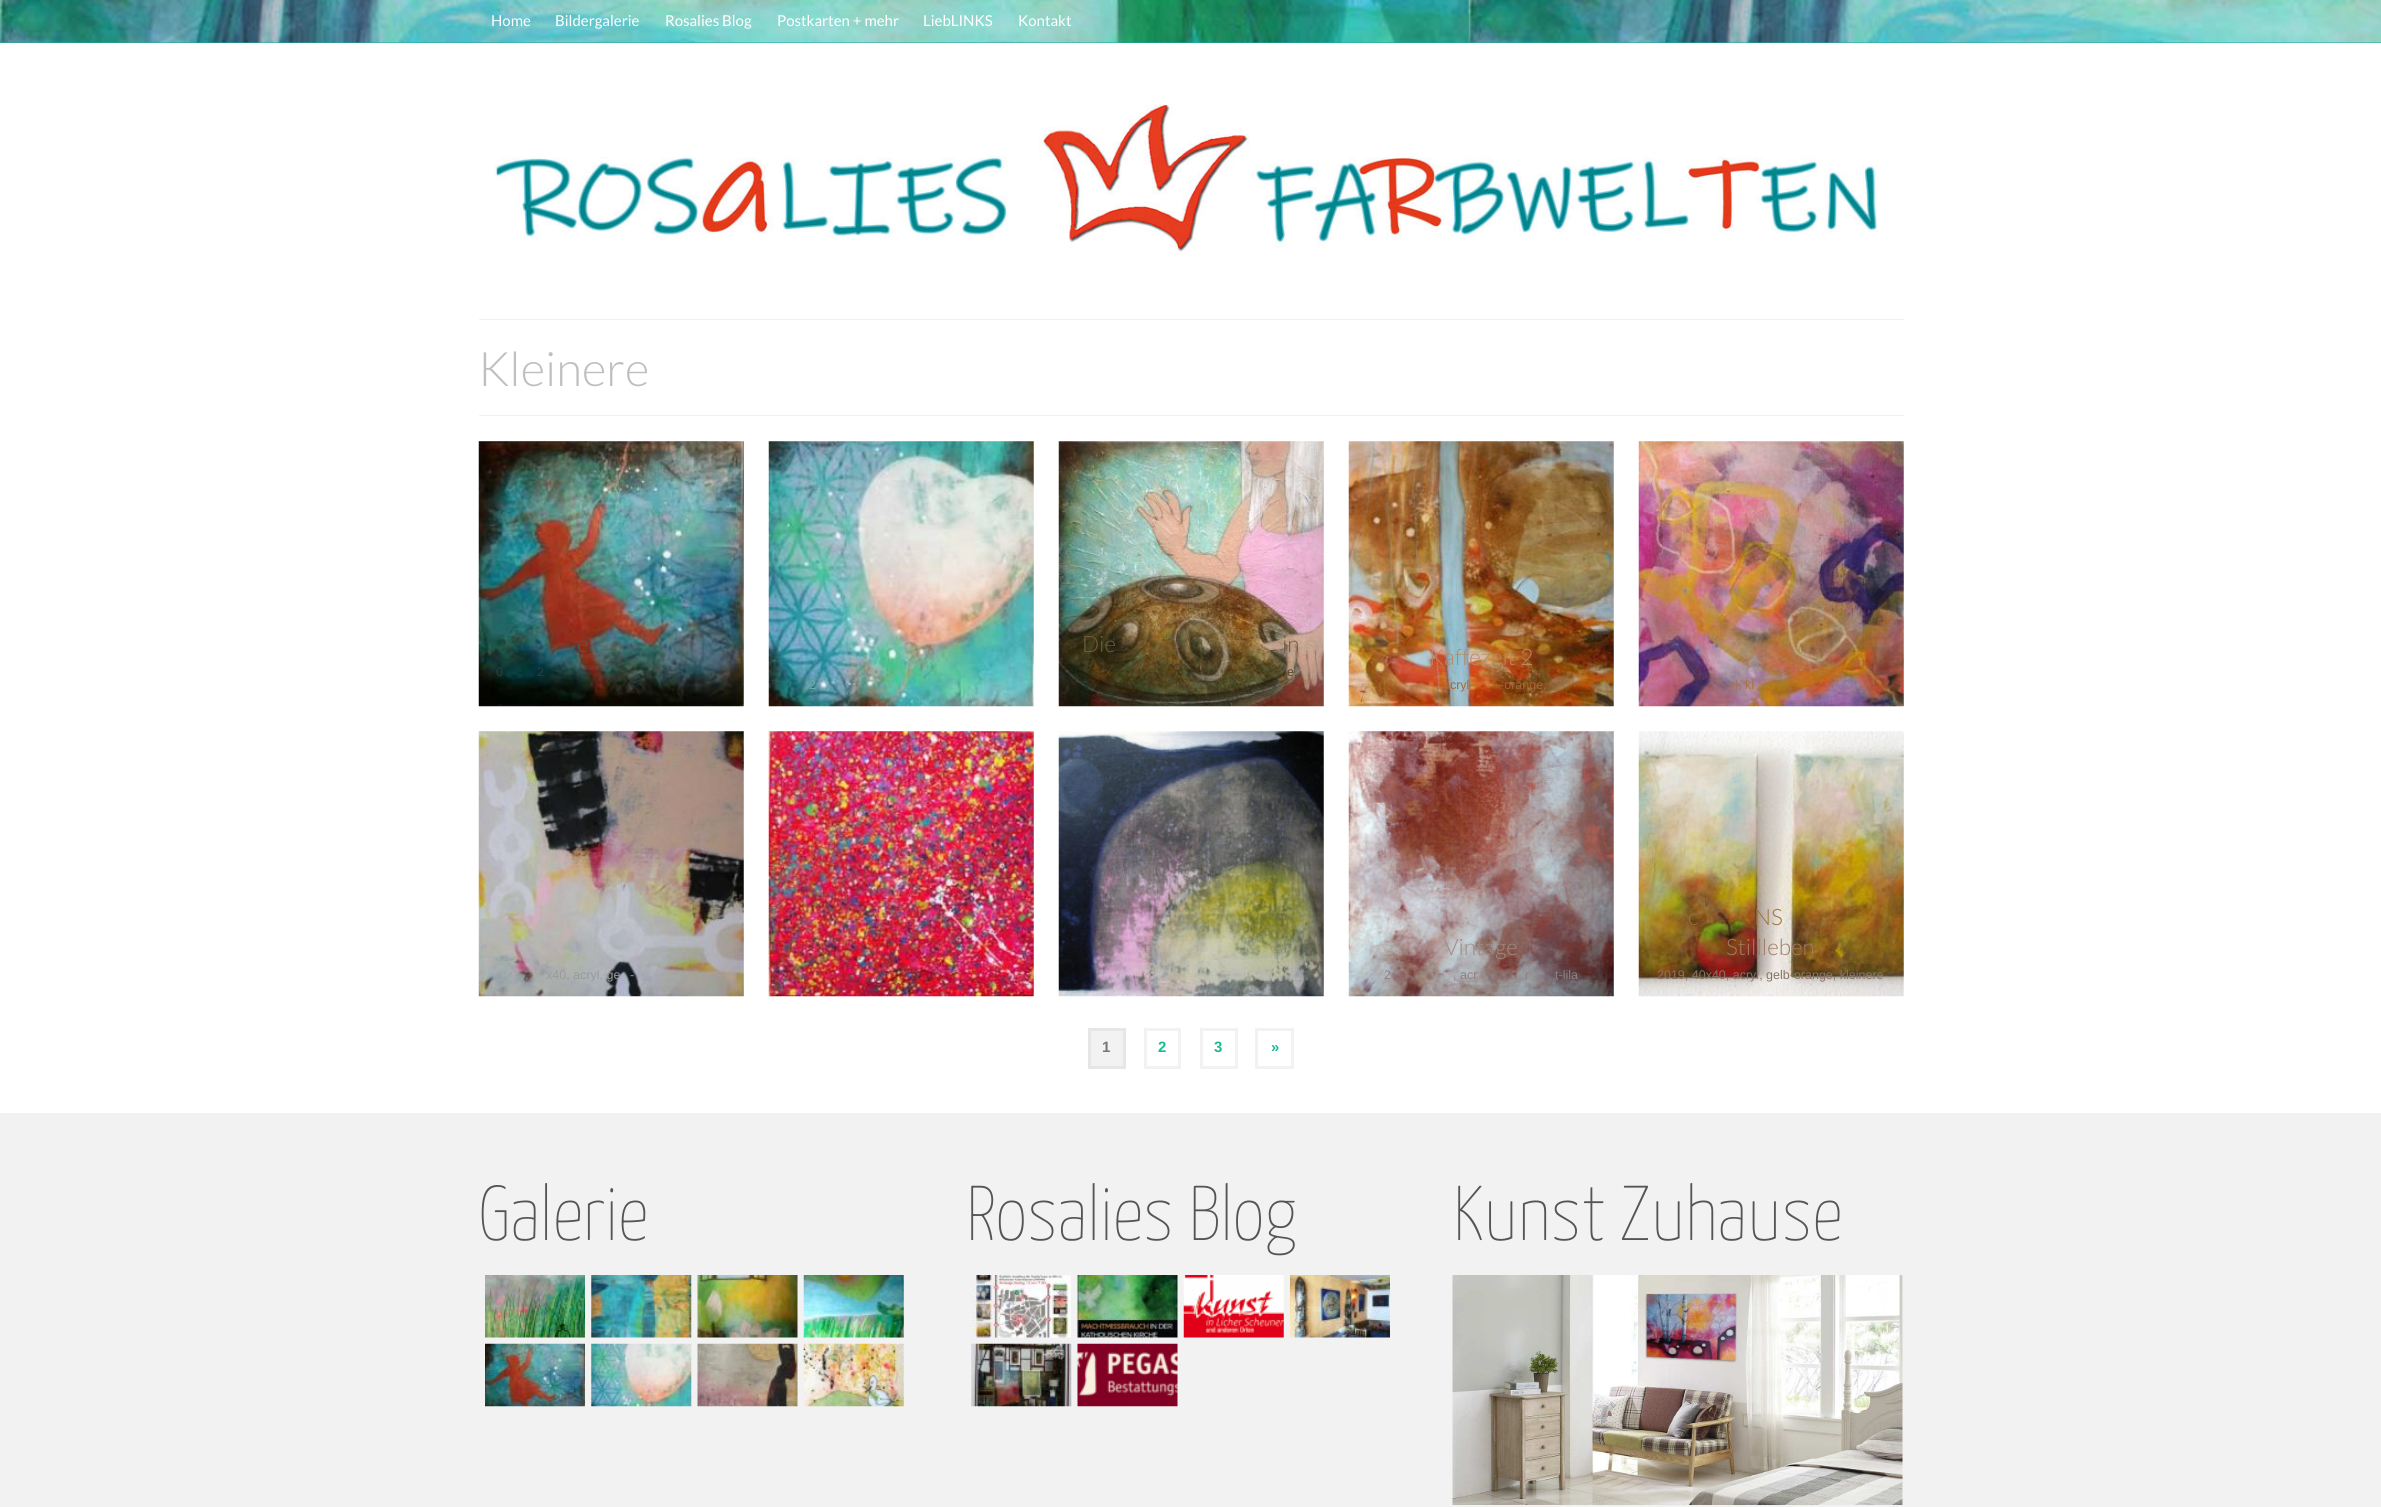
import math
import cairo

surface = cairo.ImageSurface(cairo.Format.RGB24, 2381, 1507)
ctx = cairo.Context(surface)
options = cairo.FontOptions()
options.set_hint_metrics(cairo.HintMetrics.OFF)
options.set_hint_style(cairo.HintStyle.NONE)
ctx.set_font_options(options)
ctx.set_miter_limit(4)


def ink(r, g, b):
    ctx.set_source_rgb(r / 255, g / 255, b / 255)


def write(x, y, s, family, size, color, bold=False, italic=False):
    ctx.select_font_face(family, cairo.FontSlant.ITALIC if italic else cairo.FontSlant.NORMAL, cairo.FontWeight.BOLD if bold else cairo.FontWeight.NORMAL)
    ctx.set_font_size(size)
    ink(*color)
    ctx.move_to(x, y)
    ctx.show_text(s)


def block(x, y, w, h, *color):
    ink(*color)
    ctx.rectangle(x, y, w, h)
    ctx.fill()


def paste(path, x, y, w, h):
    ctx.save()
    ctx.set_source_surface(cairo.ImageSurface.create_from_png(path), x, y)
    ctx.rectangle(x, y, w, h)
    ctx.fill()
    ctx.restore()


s1 = dict(family="Lato", size=15, color=(255, 255, 255))
s2 = dict(family="Lato Light", size=47.5, color=(191, 191, 191))
s3 = dict(family="Lato Light", size=22.5, color=(77, 92, 92))
s4 = dict(family="Liberation Sans", size=12.5, color=(39, 63, 62))
s5 = dict(family="Liberation Sans", size=12.5, color=(104, 177, 167))
s6 = dict(family="Lato Light", size=22.5, color=(113, 93, 58))
s7 = dict(family="Liberation Sans", size=12.5, color=(84, 72, 38))
s8 = dict(family="Lato Light", size=22.5, color=(181, 137, 104))
s9 = dict(family="Liberation Sans", size=12.5, color=(164, 101, 54))
s10 = dict(family="Liberation Sans", size=12.5, color=(171, 114, 82))
s11 = dict(family="Liberation Sans", size=12.5, color=(152, 153, 154))
s12 = dict(family="Liberation Sans", size=12.5, color=(190, 49, 68))
s13 = dict(family="Lato Light", size=22.5, color=(159, 139, 135))
s14 = dict(family="Liberation Sans", size=12.5, color=(144, 128, 129))
s15 = dict(family="Lato Light", size=22.5, color=(154, 116, 58))
s16 = dict(family="Lato Light", size=22.5, color=(162, 123, 99))
s17 = dict(family="Liberation Sans", size=12.5, color=(138, 115, 98))
s18 = dict(family="Liberation Sans", size=15, color=(119, 119, 119), bold=True)
s19 = dict(family="Liberation Sans", size=15, color=(26, 186, 146), bold=True)
s20 = dict(family="Yanone Kaffeesatz ExtraLight", size=77.5, color=(85, 85, 85))

ink(255, 255, 255)
ctx.paint()
block(0, 42, 2381, 1, 22, 170, 173)
paste("pic1.png", 0, 0, 2381, 43)
write(491, 26, "Home", **s1)
write(555, 26, "Bildergalerie", **s1)
write(665, 26, "Rosalies Blog", **s1)
write(777, 26, "Postkarten + mehr", **s1)
write(923, 26, "LiebLINKS", **s1)
write(1018, 26, "Kontakt", **s1)
paste("pic2.png", 494, 104, 1384, 151)
block(479, 319, 1425, 1, 242, 242, 242)
block(479, 415, 1425, 1, 242, 242, 242)
write(478, 386, "Kleinere", **s2)
paste("pic3.png", 478, 441, 266, 266)
write(577, 652, "e", **s3)
write(496, 676, "0", **s4)
write(537, 676, "2", **s4)
paste("pic4.png", 768, 441, 266, 266)
write(809, 689, "2", **s5)
paste("pic5.png", 1058, 441, 266, 266)
write(1082, 652, "Die", **s6)
write(1282, 652, "in", **s6)
write(1105, 676, "x", **s7)
write(1287, 676, "e,", **s7)
paste("pic6.png", 1348, 441, 266, 266)
write(1429, 665, "Kaffezeit 2", **s8)
write(1436, 689, ", acryl", **s9)
write(1500, 689, "-orange,", **s9)
paste("pic7.png", 1638, 441, 266, 266)
write(1729, 689, "yl, kl", **s10)
write(1789, 689, ",", **s10)
paste("pic8.png", 478, 731, 266, 266)
write(546, 979, "x40, acryl, ge", **s11)
write(630, 979, "-", **s11)
write(525, 979, ",", **s11)
paste("pic9.png", 768, 731, 266, 266)
write(873, 979, ",", **s12)
paste("pic10.png", 1058, 731, 266, 266)
paste("pic11.png", 1348, 731, 266, 266)
write(1444, 955, "Vintage", **s13)
write(1384, 979, "2", **s14)
write(1411, 979, ",", **s14)
write(1453, 979, ", acr", **s14)
write(1525, 979, "r", **s14)
write(1555, 979, "t-lila", **s14)
paste("pic12.png", 1638, 731, 266, 266)
write(1688, 925, "c", **s15)
write(1754, 925, "NS", **s15)
write(1726, 955, "Stillleben", **s16)
write(1657, 979, "2019, 40x40, acryl, gelb-orange, kleinere", **s17)
ink(242, 242, 242)
ctx.rectangle(1089.5, 1029.5, 35, 38)
ctx.fill_preserve()
ink(230, 230, 230)
ctx.set_line_width(3)
ctx.stroke()
write(1102, 1052, "1", **s18)
ctx.rectangle(1145.5, 1029.5, 34, 38)
ink(242, 242, 242)
ctx.stroke()
write(1158, 1052, "2", **s19)
ctx.rectangle(1201.5, 1029.5, 35, 38)
ink(242, 242, 242)
ctx.stroke()
write(1214, 1052, "3", **s19)
ctx.rectangle(1256.5, 1029.5, 36, 38)
ink(242, 242, 242)
ctx.stroke()
write(1271, 1052, "»", **s19)
block(0, 1113, 2381, 394, 242, 242, 242)
write(478, 1240, "Galerie", **s20)
paste("pic13.png", 485, 1275, 100, 63)
paste("pic14.png", 591, 1275, 101, 63)
paste("pic15.png", 697, 1275, 101, 63)
paste("pic16.png", 803, 1275, 101, 63)
paste("pic17.png", 485, 1343, 100, 64)
paste("pic18.png", 591, 1343, 101, 64)
paste("pic19.png", 697, 1343, 101, 64)
paste("pic20.png", 803, 1343, 101, 64)
write(966, 1240, "Rosalies Blog", **s20)
paste("pic21.png", 971, 1275, 100, 63)
paste("pic22.png", 1077, 1275, 101, 63)
paste("pic23.png", 1183, 1275, 101, 63)
paste("pic24.png", 1290, 1275, 100, 63)
paste("pic25.png", 971, 1343, 101, 64)
paste("pic26.png", 1077, 1343, 101, 64)
write(1453, 1240, "Kunst Zuhause", **s20)
paste("pic27.png", 1452, 1275, 451, 230)
surface.write_to_png("screenshot.png")
